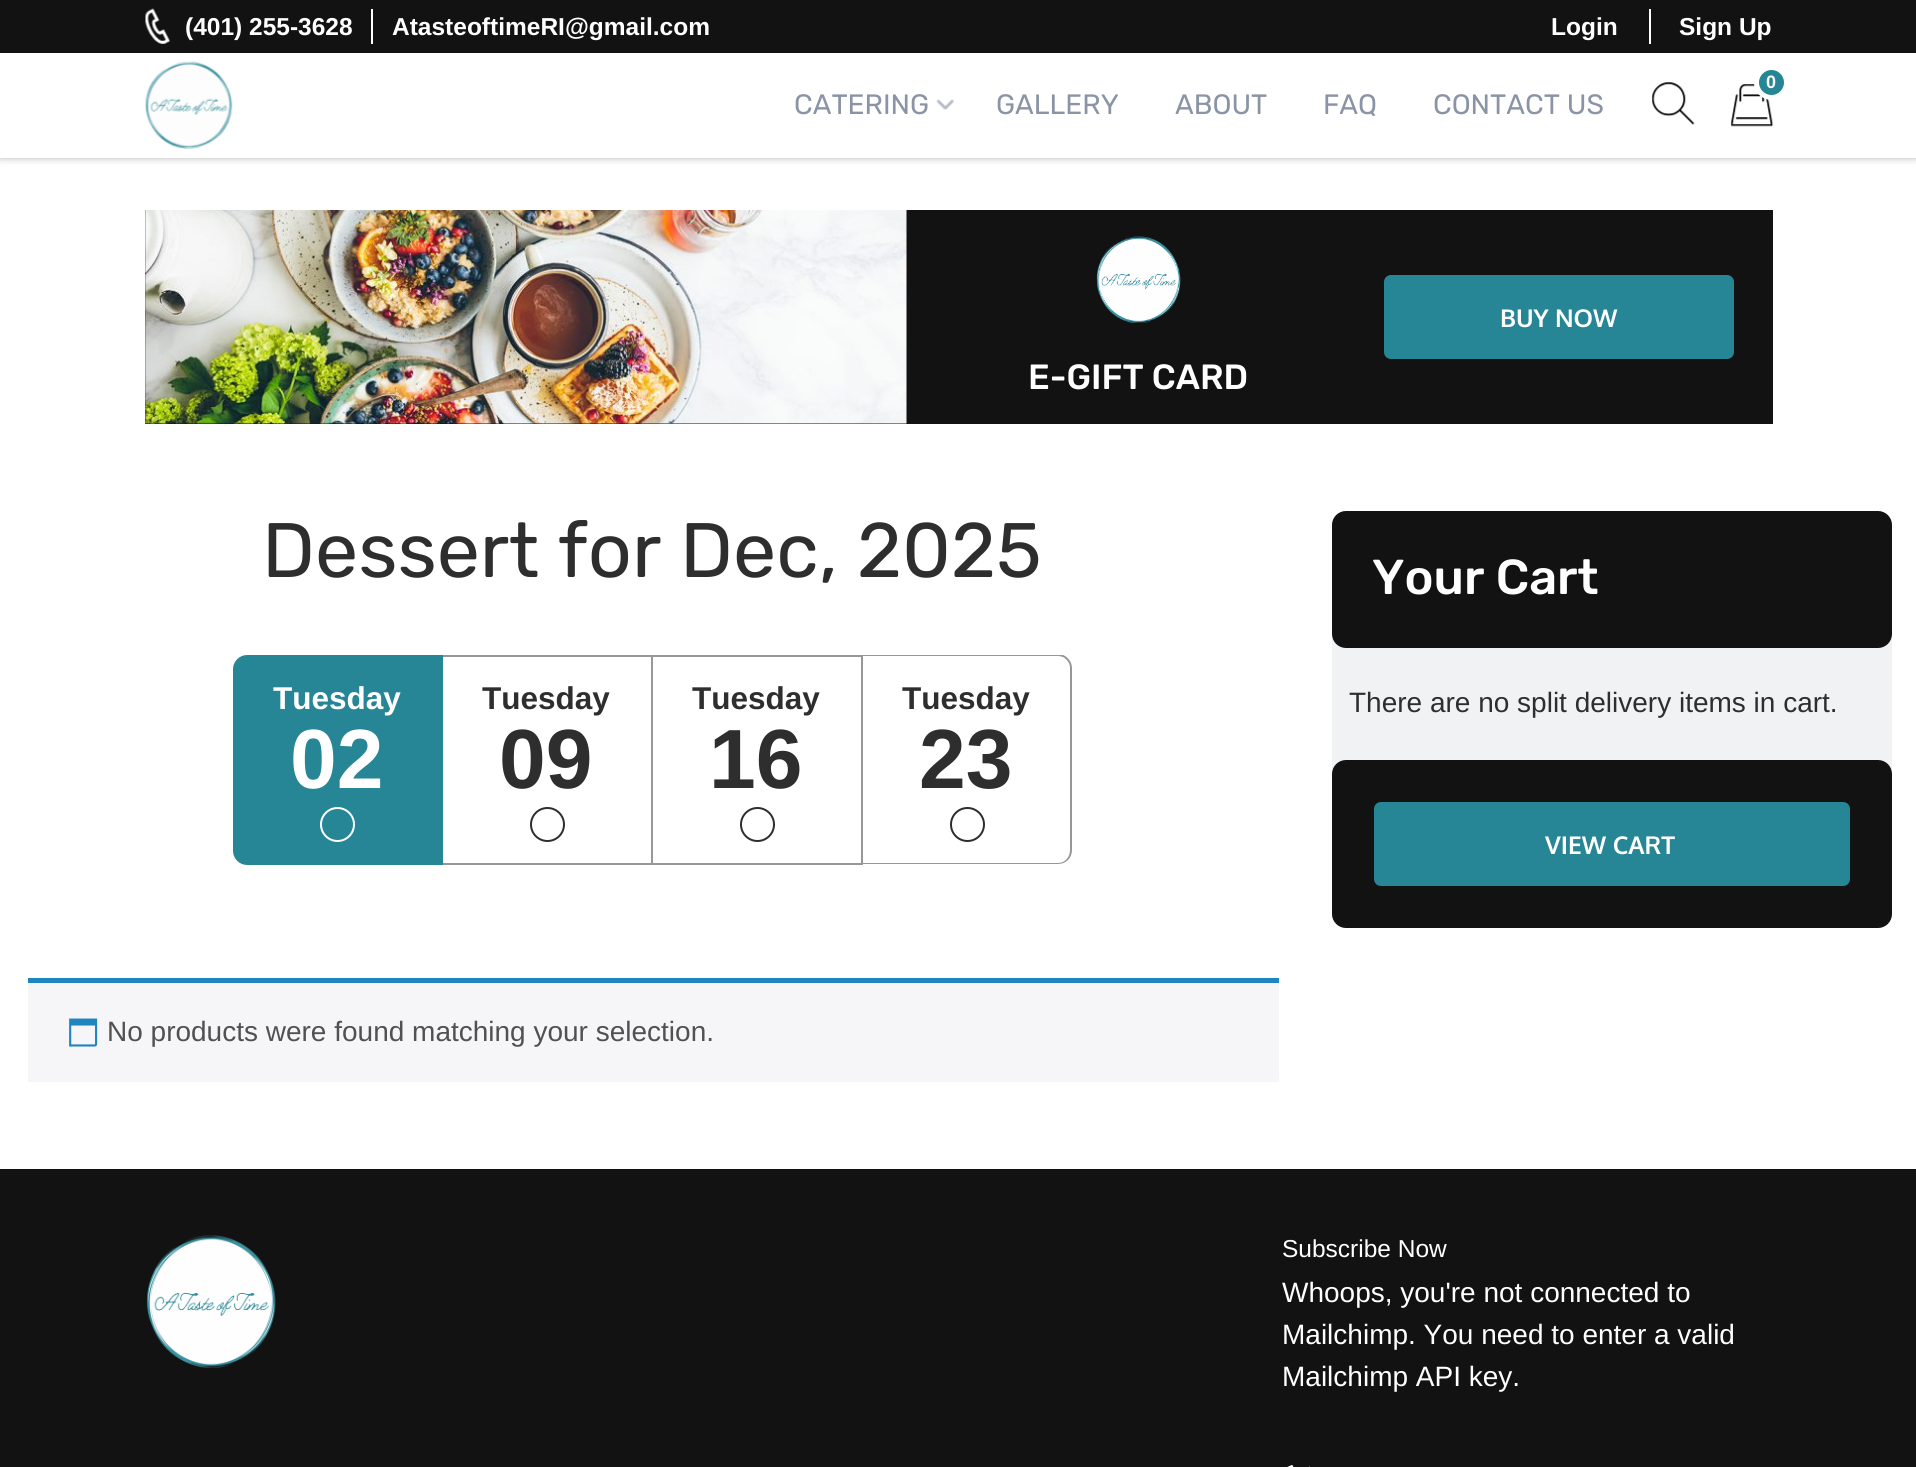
import math
import cairo

surface = cairo.ImageSurface(cairo.Format.RGB24, 1916, 1467)
ctx = cairo.Context(surface)
options = cairo.FontOptions()
options.set_hint_metrics(cairo.HintMetrics.OFF)
options.set_hint_style(cairo.HintStyle.NONE)
ctx.set_font_options(options)
ctx.set_miter_limit(4)


def ink(r, g, b):
    ctx.set_source_rgb(r / 255, g / 255, b / 255)


def write(x, y, s, family, size, color, bold=False, italic=False):
    ctx.select_font_face(family, cairo.FontSlant.ITALIC if italic else cairo.FontSlant.NORMAL, cairo.FontWeight.BOLD if bold else cairo.FontWeight.NORMAL)
    ctx.set_font_size(size)
    ink(*color)
    ctx.move_to(x, y)
    ctx.show_text(s)


def block(x, y, w, h, *color):
    ink(*color)
    ctx.rectangle(x, y, w, h)
    ctx.fill()


def round_path(x, y, w, h, r):
    ctx.new_sub_path()
    for i, (u, v) in enumerate([(x + w - r, y + h - r), (x + r, y + h - r), (x + r, y + r), (x + w - r, y + r)]):
        ctx.arc(u, v, r, i * math.pi / 2, (i + 1) * math.pi / 2)
    ctx.close_path()


def blur_box(x, y, w, h, r, blur, alpha):
    ctx.push_group_with_content(cairo.Content.ALPHA)
    ctx.set_operator(cairo.Operator.SOURCE)
    for i in range(15, -16, -2):
        e = blur * i / 6
        if min(w, h) + 2 * e > 0:
            ctx.set_source_rgba(0, 0, 0, alpha * math.erfc((i - 1) / 8.5) / 2)
            round_path(x - e, y - e, w + 2 * e, h + 2 * e, max(0, min(r + e + blur * .6, min(w, h) / 2 + e)))
            ctx.fill()
    ctx.mask(ctx.pop_group())


def paste(path, x, y, w, h):
    ctx.save()
    ctx.set_source_surface(cairo.ImageSurface.create_from_png(path), x, y)
    ctx.rectangle(x, y, w, h)
    ctx.fill()
    ctx.restore()


s1 = dict(family="Liberation Sans", size=24.5, color=(255, 255, 255), bold=True)
s2 = dict(family="Rubik", size=28, color=(138, 148, 166))
s3 = dict(family="Liberation Sans", size=18, color=(255, 255, 255), bold=True)
s4 = dict(family="Oxygen", size=24.5, color=(255, 255, 255), bold=True)
s5 = dict(family="Rubik Medium", size=35, color=(255, 255, 255))
s6 = dict(family="Rubik", size=77, color=(46, 46, 46))
s7 = dict(family="Liberation Sans", size=31.5, color=(255, 255, 255), bold=True)
s8 = dict(family="Liberation Sans", size=84, color=(255, 255, 255), bold=True)
s9 = dict(family="Liberation Sans", size=31.5, color=(46, 46, 46), bold=True)
s10 = dict(family="Liberation Sans", size=84, color=(46, 46, 46), bold=True)
s11 = dict(family="Liberation Sans", size=28, color=(81, 81, 81))
s12 = dict(family="Rubik Medium", size=49, color=(255, 255, 255))
s13 = dict(family="Liberation Sans", size=28, color=(46, 46, 46))
s14 = dict(family="Liberation Sans", size=24.5, color=(255, 255, 255))
s15 = dict(family="Liberation Sans", size=28, color=(255, 255, 255))

ink(255, 255, 255)
ctx.paint()
ink(18, 18, 18)
blur_box(0, -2, 1916, 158, 0, 4.5, 0.5)
block(0, 0, 1916, 53, 18, 18, 18)
paste("pic1.png", 145, 8, 25, 36)
write(185, 35, "(401) 255-3628", **s1)
block(371, 9, 2, 35, 255, 255, 255)
write(392, 35, "AtasteoftimeRI@gmail.com", **s1)
write(1551, 35, "Login", **s1)
block(1649, 9, 2, 35, 255, 255, 255)
write(1679, 35, "Sign Up", **s1)
block(0, 53, 1916, 105, 255, 255, 255)
paste("pic2.png", 145, 61, 88, 88)
write(794, 114, "CATERING", **s2)
paste("pic3.png", 936, 99, 18, 11)
write(996, 114, "GALLERY", **s2)
write(1175, 114, "ABOUT", **s2)
write(1323, 114, "FAQ", **s2)
write(1433, 114, "CONTACT US", **s2)
paste("pic4.png", 1652, 82, 43, 43)
paste("pic5.png", 1731, 84, 43, 43)
ink(39, 134, 150)
ctx.arc(1771.5, 82.5, 15, 0, 2 * math.pi)
ctx.fill_preserve()
ink(255, 255, 255)
ctx.set_line_width(5)
ctx.stroke()
write(1766, 88, "0", **s3)
block(145, 210, 1628, 214, 18, 18, 18)
paste("pic6.png", 145, 210, 762, 214)
ink(39, 134, 150)
round_path(1385, 276, 348, 82, 6)
ctx.fill_preserve()
ctx.set_line_width(2)
ctx.stroke()
write(1500, 327, "BUY NOW", **s4)
paste("pic7.png", 1096, 236, 85, 87)
write(1028, 389, "E-GIFT CARD", **s5)
write(262, 577, "Dessert for Dec, 2025", **s6)
ink(39, 134, 150)
ctx.new_path()
ctx.move_to(247, 656)
ctx.line_to(442, 656)
ctx.line_to(442, 864)
ctx.line_to(247, 864)
ctx.curve_to(240, 864, 234, 858, 234, 851)
ctx.line_to(234, 669)
ctx.curve_to(234, 662, 240, 656, 247, 656)
ctx.close_path()
ctx.fill_preserve()
ctx.stroke()
write(273, 709, "Tuesday", **s7)
write(290, 788, "02", **s8)
ctx.new_path()
ctx.arc(337.5, 824.5, 16.5, 0, 2 * math.pi)
ctx.stroke()
block(443, 655, 420, 2, 151, 151, 151)
block(651, 655, 2, 210, 151, 151, 151)
block(443, 863, 210, 2, 151, 151, 151)
write(482, 709, "Tuesday", **s9)
write(499, 788, "09", **s10)
ctx.new_path()
ctx.arc(547.5, 824.5, 16.5, 0, 2 * math.pi)
ctx.stroke()
block(861, 655, 2, 210, 151, 151, 151)
block(653, 863, 210, 2, 151, 151, 151)
write(692, 709, "Tuesday", **s9)
write(709, 788, "16", **s10)
ctx.new_path()
ctx.arc(757.5, 824.5, 16.5, 0, 2 * math.pi)
ctx.stroke()
ctx.save()
ctx.rectangle(28, 655, 1251, 271)
ctx.clip()
ink(151, 151, 151)
ctx.set_fill_rule(cairo.FillRule.EVEN_ODD)
ctx.new_path()
ctx.move_to(862, 654)
ctx.line_to(1058, 654)
ctx.curve_to(1066, 654, 1072, 661, 1072, 668)
ctx.line_to(1072, 850)
ctx.curve_to(1072, 858, 1066, 864, 1058, 864)
ctx.line_to(862, 864)
ctx.close_path()
ctx.move_to(862, 656)
ctx.line_to(1058, 656)
ctx.curve_to(1065, 656, 1070, 662, 1070, 668)
ctx.line_to(1070, 850)
ctx.curve_to(1070, 857, 1065, 863, 1058, 863)
ctx.line_to(862, 863)
ctx.close_path()
ctx.fill()
ctx.restore()
write(902, 709, "Tuesday", **s9)
write(919, 788, "23", **s10)
ctx.new_path()
ctx.arc(967.5, 824.5, 16.5, 0, 2 * math.pi)
ctx.stroke()
block(28, 983, 1251, 99, 246, 245, 248)
block(28, 978, 1251, 5, 30, 133, 190)
paste("pic8.png", 69, 1018, 29, 29)
write(107, 1041, "No products were found matching your selection.", **s11)
ink(241, 242, 244)
round_path(1332, 511, 560, 417, 14)
ctx.fill()
ink(18, 18, 18)
round_path(1332, 511, 560, 137, 14)
ctx.fill()
write(1372, 594, "Your Cart", **s12)
write(1349, 712, "There are no split delivery items in cart.", **s13)
ink(18, 18, 18)
round_path(1332, 760, 560, 168, 14)
ctx.fill()
ink(39, 134, 150)
round_path(1375, 803, 474, 82, 6)
ctx.fill_preserve()
ctx.stroke()
write(1545, 854, "VIEW CART", **s4)
block(0, 1169, 1916, 298, 18, 18, 18)
paste("pic9.png", 146, 1235, 130, 133)
write(1282, 1257, "Subscribe Now", **s14)
write(1282, 1302, "Whoops, you're not connected to", **s15)
write(1282, 1344, "Mailchimp. You need to enter a valid", **s15)
write(1282, 1386, "Mailchimp API key.", **s15)
paste("pic10.png", 1287, 1465, 24, 2)
surface.write_to_png("screenshot.png")
